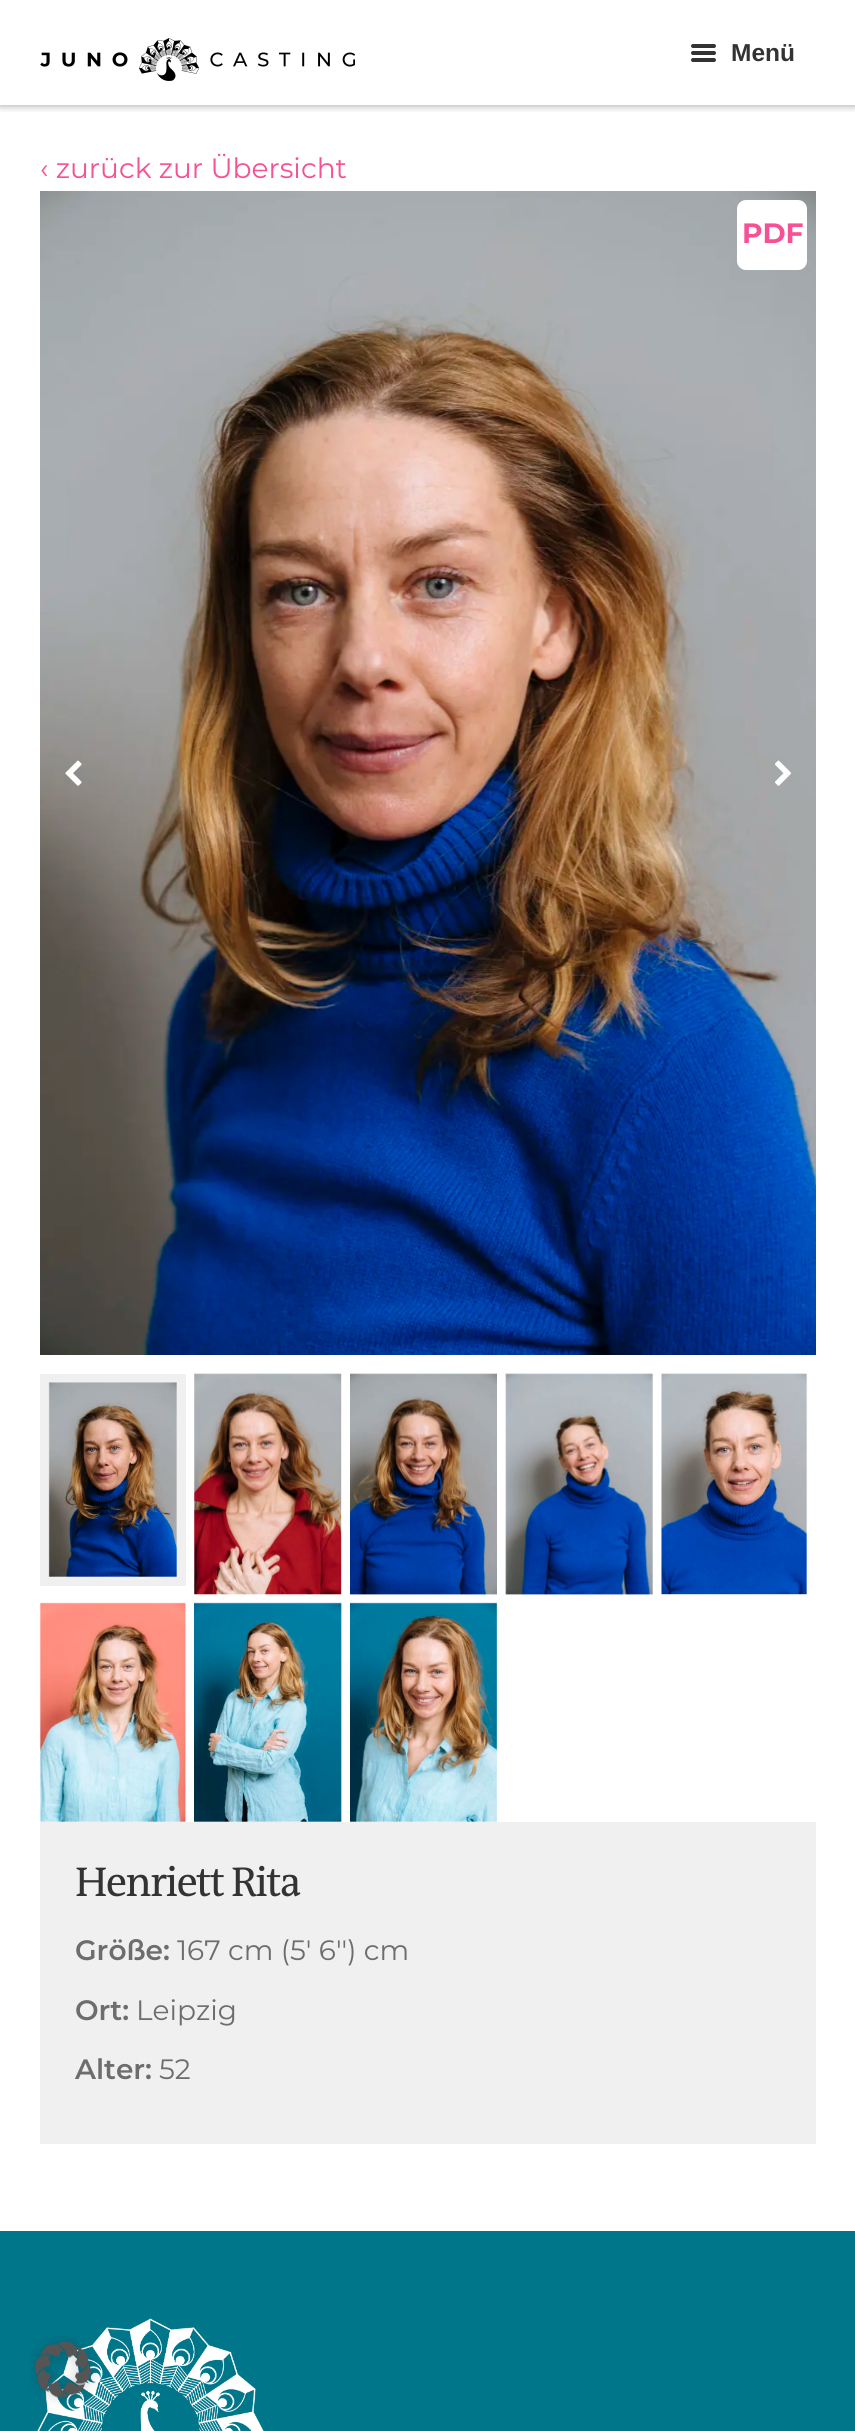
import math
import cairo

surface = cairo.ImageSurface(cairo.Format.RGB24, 855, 2431)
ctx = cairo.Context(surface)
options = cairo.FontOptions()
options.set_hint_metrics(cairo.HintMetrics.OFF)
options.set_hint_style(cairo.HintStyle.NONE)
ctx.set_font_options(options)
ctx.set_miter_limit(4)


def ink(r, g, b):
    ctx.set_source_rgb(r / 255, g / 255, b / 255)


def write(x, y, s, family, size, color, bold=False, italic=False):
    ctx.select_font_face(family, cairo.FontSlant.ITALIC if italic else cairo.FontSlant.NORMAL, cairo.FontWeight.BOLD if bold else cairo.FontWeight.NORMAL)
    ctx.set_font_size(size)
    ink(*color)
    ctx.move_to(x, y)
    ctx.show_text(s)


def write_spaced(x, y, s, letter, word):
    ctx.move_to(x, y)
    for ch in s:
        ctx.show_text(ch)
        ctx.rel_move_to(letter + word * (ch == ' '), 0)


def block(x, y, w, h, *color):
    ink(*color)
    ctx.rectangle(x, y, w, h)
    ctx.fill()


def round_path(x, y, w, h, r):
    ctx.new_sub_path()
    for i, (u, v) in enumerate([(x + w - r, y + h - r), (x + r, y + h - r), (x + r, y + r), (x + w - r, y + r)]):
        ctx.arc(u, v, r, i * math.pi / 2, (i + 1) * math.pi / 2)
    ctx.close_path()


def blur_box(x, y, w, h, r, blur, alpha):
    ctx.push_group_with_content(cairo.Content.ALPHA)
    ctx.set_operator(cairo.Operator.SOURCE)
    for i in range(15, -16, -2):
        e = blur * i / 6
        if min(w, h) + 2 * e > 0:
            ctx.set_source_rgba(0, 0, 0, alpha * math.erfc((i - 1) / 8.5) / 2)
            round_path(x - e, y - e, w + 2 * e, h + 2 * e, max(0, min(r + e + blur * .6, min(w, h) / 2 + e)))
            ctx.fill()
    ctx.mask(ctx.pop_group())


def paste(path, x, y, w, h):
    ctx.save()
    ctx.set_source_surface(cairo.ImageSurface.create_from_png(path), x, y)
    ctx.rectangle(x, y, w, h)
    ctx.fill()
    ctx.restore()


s1 = dict(family="Liberation Sans", size=24.5, color=(51, 51, 51), bold=True)
s2 = dict(family="Montserrat", size=28, color=(247, 80, 148))
s3 = dict(family="Montserrat", size=28, color=(247, 80, 148), bold=True)
s4 = dict(family="Montserrat SemiBold", size=28, color=(109, 109, 109))
s5 = dict(family="Montserrat", size=28, color=(109, 109, 109))

ink(255, 255, 255)
ctx.paint()
ctx.save()
ctx.rectangle(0, 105, 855, 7)
ctx.clip()
ink(0, 0, 0)
blur_box(0, 0, 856, 105, 0, 4.5, 0.4)
ctx.restore()
paste("pic1.png", 40, 38, 315, 43)
ink(51, 51, 51)
round_path(691, 44, 25, 4, 2)
ctx.fill()
round_path(691, 51, 25, 4, 2)
ctx.fill()
write(731, 61, "Menü", **s1)
round_path(691, 58, 25, 4, 2)
ctx.fill()
write(40, 178, "‹ zurück zur Übersicht", **s2)
paste("pic2.png", 40, 191, 776, 1164)
paste("pic3.png", 65, 760, 17, 26)
paste("pic4.png", 775, 760, 16, 26)
ctx.rectangle(44.5, 1378.5, 137, 203)
ink(240, 240, 240)
ctx.set_line_width(9)
ctx.stroke()
paste("pic5.png", 48, 1382, 129, 195)
paste("pic6.png", 194, 1373, 148, 222)
paste("pic7.png", 350, 1373, 147, 222)
paste("pic8.png", 505, 1373, 148, 222)
paste("pic9.png", 661, 1373, 147, 222)
paste("pic10.png", 40, 1602, 146, 220)
paste("pic11.png", 194, 1602, 148, 220)
paste("pic12.png", 350, 1602, 147, 220)
block(40, 1822, 776, 322, 240, 240, 240)
ink(255, 255, 255)
round_path(737, 200, 70, 70, 9)
ctx.fill()
write(742, 243, "PDF", **s3)
ctx.select_font_face("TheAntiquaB")
ctx.set_font_size(42)
ink(51, 51, 51)
write_spaced(75, 1896, "Henriett Rita", -1.75, 0)
write(75, 1960, "Größe:", **s4)
write(177, 1960, "167 cm (5' 6'') cm", **s5)
write(75, 2020, "Ort:", **s4)
write(136, 2020, "Leipzig", **s5)
write(75, 2079, "Alter:", **s4)
write(159, 2079, "52", **s5)
block(0, 2231, 855, 200, 0, 118, 138)
paste("pic13.png", 37, 2318, 227, 113)
paste("pic14.png", 29, 2336, 69, 68)
surface.write_to_png("screenshot.png")
